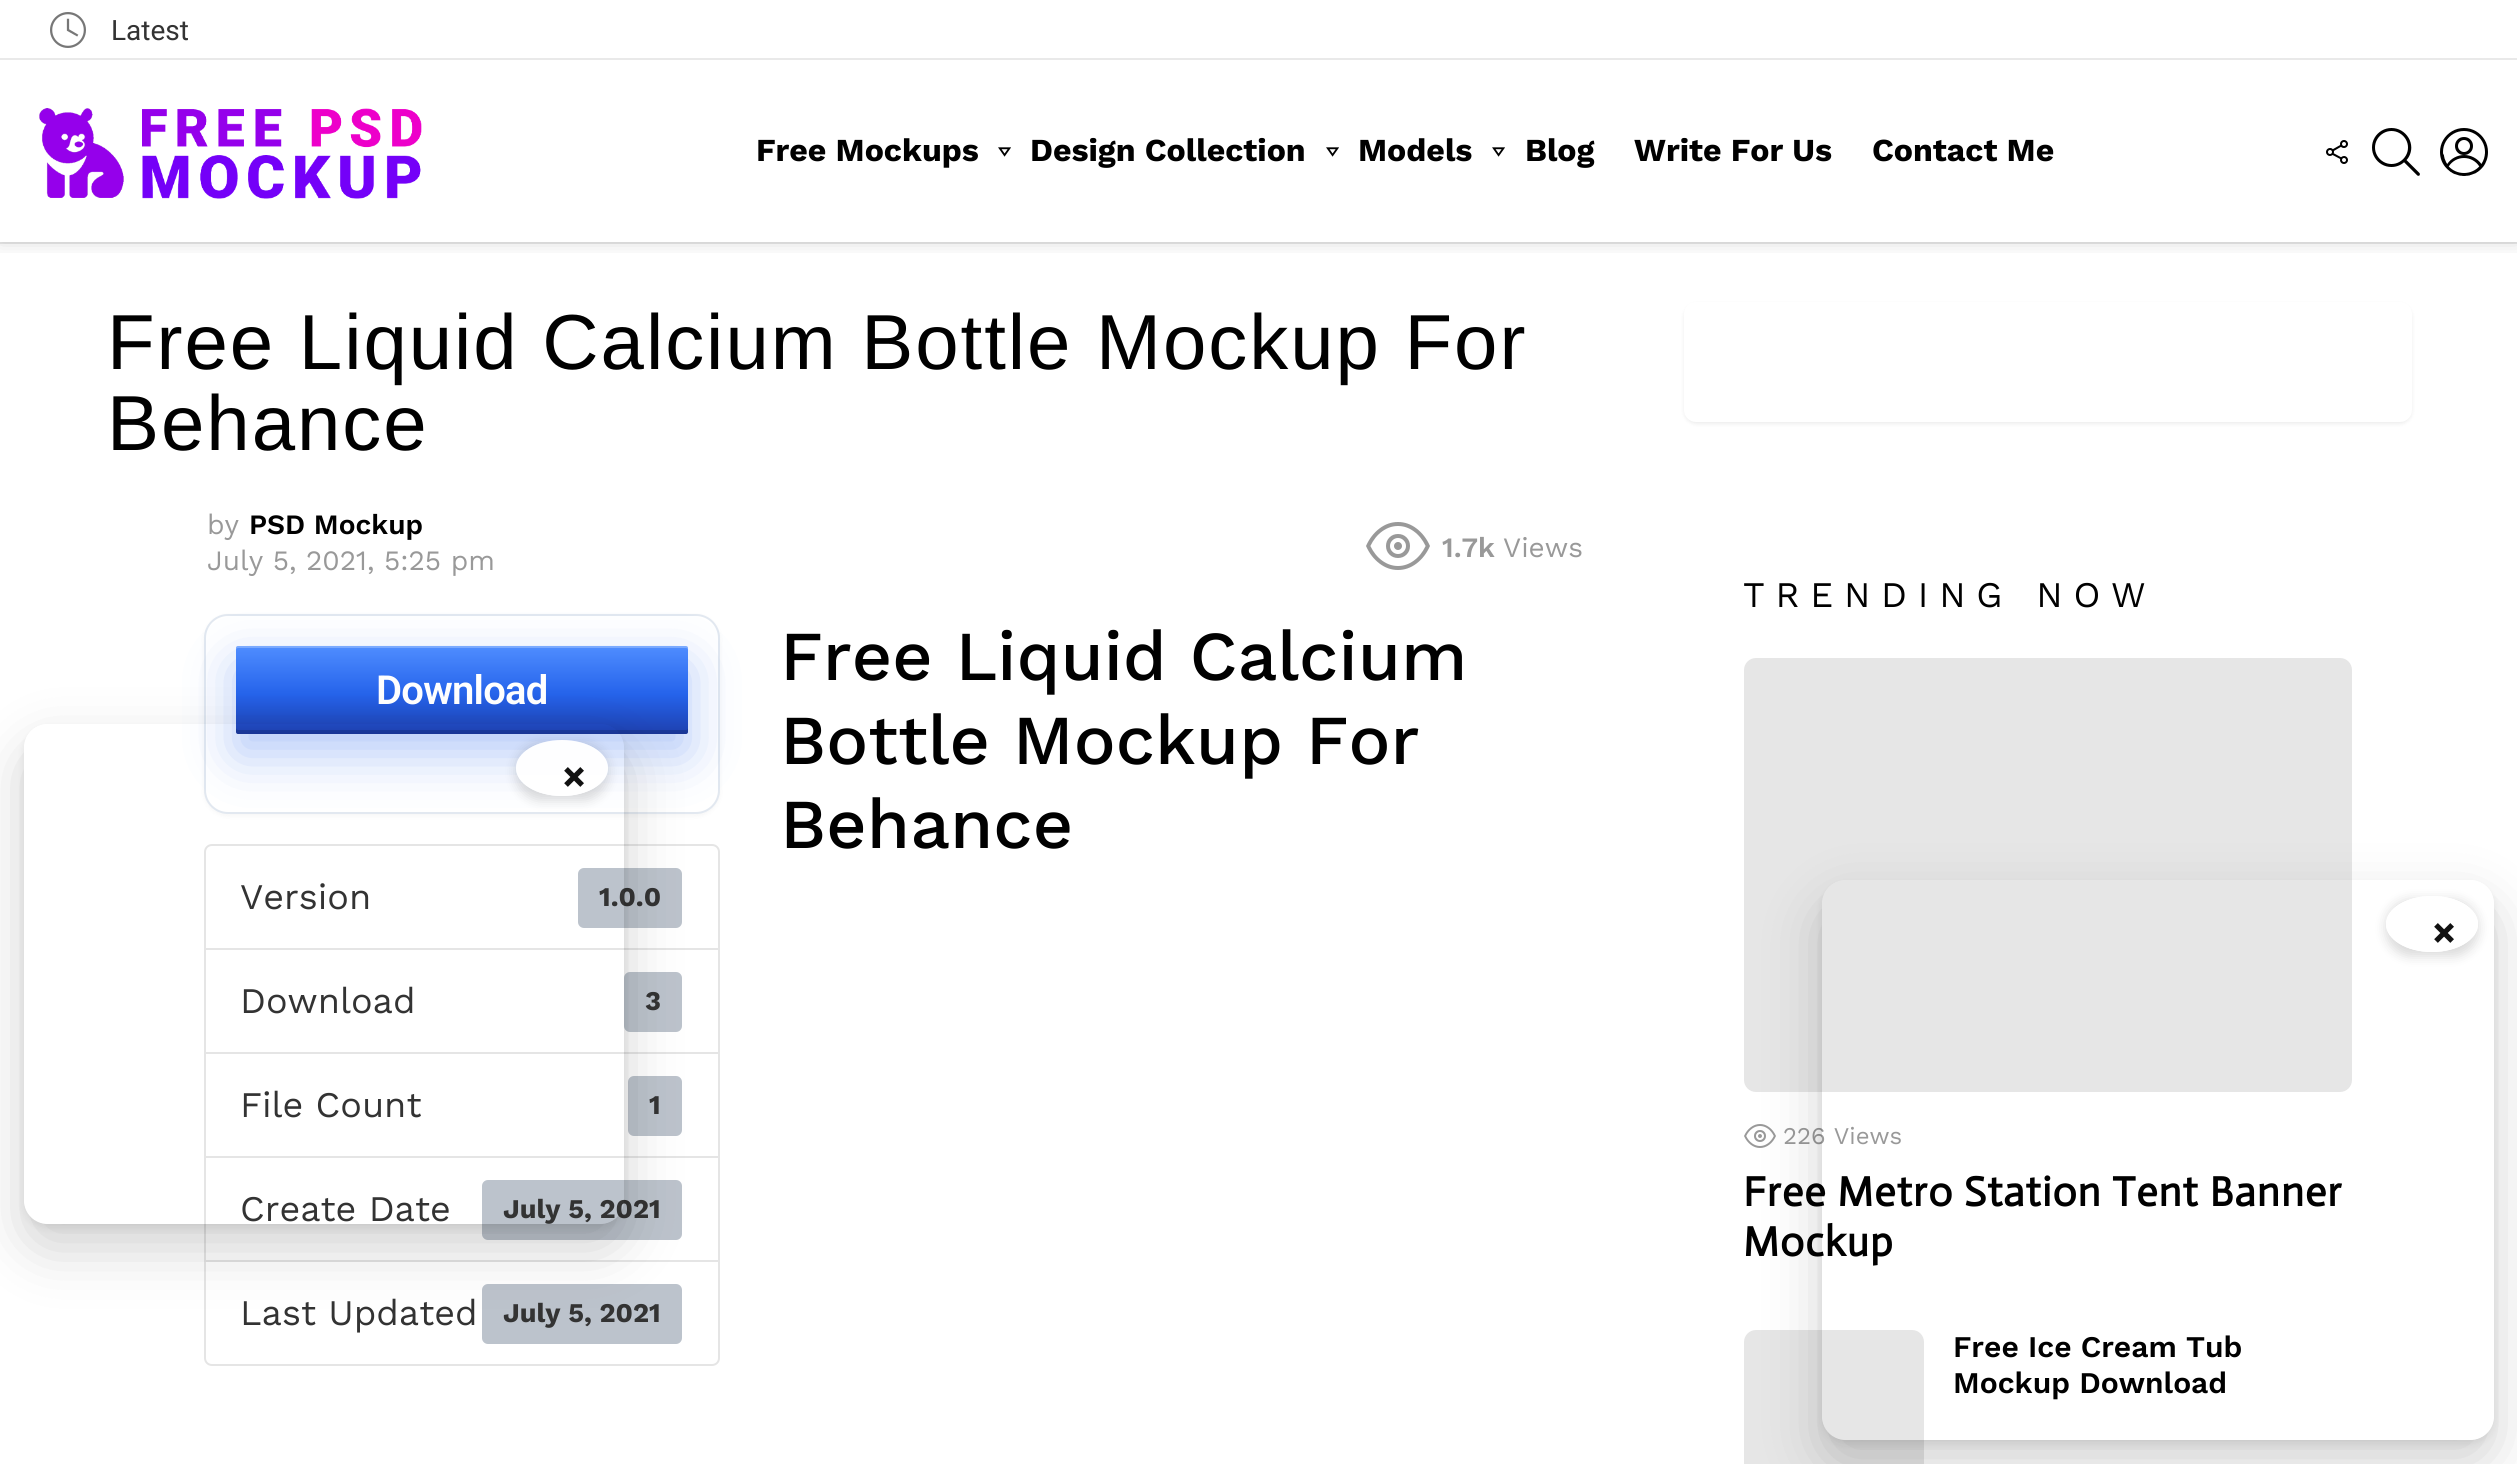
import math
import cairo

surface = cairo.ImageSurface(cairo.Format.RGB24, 2517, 1464)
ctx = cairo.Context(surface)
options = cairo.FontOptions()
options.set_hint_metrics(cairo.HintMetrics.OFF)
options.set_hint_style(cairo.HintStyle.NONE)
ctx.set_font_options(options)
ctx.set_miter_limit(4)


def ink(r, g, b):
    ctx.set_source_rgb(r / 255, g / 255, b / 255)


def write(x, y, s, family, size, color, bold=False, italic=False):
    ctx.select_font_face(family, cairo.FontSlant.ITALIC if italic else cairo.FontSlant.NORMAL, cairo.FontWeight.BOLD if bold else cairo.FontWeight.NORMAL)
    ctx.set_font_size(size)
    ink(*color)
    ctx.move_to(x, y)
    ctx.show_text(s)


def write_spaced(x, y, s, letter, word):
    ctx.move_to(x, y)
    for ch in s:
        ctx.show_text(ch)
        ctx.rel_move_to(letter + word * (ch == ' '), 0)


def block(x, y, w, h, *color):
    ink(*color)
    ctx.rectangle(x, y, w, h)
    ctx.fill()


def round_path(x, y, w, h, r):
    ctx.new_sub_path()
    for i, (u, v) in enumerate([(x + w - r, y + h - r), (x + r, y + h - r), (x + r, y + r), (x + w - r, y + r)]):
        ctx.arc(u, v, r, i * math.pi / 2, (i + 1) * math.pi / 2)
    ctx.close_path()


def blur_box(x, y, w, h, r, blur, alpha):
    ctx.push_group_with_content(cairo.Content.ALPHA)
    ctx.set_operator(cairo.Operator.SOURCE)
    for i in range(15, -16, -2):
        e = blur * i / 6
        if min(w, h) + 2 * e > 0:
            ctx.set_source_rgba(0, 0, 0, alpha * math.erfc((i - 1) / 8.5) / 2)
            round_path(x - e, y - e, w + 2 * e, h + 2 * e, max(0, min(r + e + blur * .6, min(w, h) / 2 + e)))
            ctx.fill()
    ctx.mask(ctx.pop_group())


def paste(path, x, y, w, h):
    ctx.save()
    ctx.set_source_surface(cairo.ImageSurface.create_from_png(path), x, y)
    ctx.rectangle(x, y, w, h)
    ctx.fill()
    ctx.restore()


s1 = dict(family="Roboto", size=28, color=(51, 51, 51))
s2 = dict(family="Work Sans", size=32, color=(0, 0, 0), bold=True)
s3 = dict(family="Work Sans", size=28, color=(153, 153, 153))
s4 = dict(family="Work Sans SemiBold", size=28, color=(0, 0, 0))
s5 = dict(family="Work Sans SemiBold", size=28, color=(153, 153, 153))
s6 = dict(family="Work Sans", size=36, color=(51, 51, 51))
s7 = dict(family="Work Sans", size=27, color=(51, 51, 51), bold=True)
s8 = dict(family="Work Sans Medium", size=70, color=(0, 0, 0))
s9 = dict(family="Work Sans", size=24, color=(153, 153, 153))
s10 = dict(family="Work Sans SemiBold", size=30, color=(0, 0, 0))
s11 = dict(family="Work Sans", size=40, color=(17, 17, 17), bold=True)

ink(255, 255, 255)
ctx.paint()
block(0, 242, 2517, 2, 233, 233, 233)
ctx.save()
ctx.rectangle(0, 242, 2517, 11)
ctx.clip()
ink(0, 0, 0)
blur_box(0, 60, 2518, 182, 0, 10, 0.15)
ctx.restore()
block(0, 45, 2517, 13, 255, 255, 255)
paste("pic1.png", 50, 12, 36, 36)
write(111, 40, "Latest", **s1)
block(0, 58, 2517, 2, 233, 233, 233)
paste("pic2.png", 39, 108, 383, 91)
write(756, 161, "Free Mockups", **s2)
paste("pic3.png", 998, 147, 13, 10)
write(1030, 161, "Design Collection", **s2)
paste("pic3.png", 1326, 147, 13, 10)
write(1358, 161, "Models", **s2)
paste("pic3.png", 1492, 147, 13, 10)
write(1525, 161, "Blog", **s2)
write(1634, 161, "Write For Us", **s2)
write(1872, 161, "Contact Me", **s2)
paste("pic4.png", 2326, 140, 22, 24)
paste("pic5.png", 2372, 128, 48, 48)
paste("pic6.png", 2440, 128, 48, 48)
ctx.select_font_face("Liberation Sans")
ctx.set_font_size(78)
write_spaced(107, 369, "Free Liquid Calcium Bottle Mockup For", 1.95, 0)
write_spaced(107, 450, "Behance", 1.95, 0)
write(207, 534, "by", **s3)
write(249, 534, "PSD Mockup", **s4)
write(207, 570, "July 5, 2021, 5:25 pm", **s3)
paste("pic7.png", 1366, 522, 64, 48)
write(1442, 557, "1.7k", **s5)
write(1503, 557, "Views", **s3)
ink(0, 0, 0)
blur_box(204, 616, 516, 200, 24, 3, 0.04)
ink(255, 255, 255)
round_path(205, 615, 514, 198, 23)
ctx.fill_preserve()
ink(226, 232, 240)
ctx.stroke()
ink(37, 99, 235)
blur_box(236, 666, 452, 88, 2, 25, 0.35)
gradient = cairo.LinearGradient(462, 646, 462, 734)
gradient.add_color_stop_rgba(0, 0.31, 0.553, 1, 1)
gradient.add_color_stop_rgba(0.55, 0.145, 0.388, 0.922, 1)
gradient.add_color_stop_rgba(1, 0.118, 0.251, 0.686, 1)
ctx.set_source(gradient)
round_path(236, 646, 452, 88, 2)
ctx.fill()
ctx.set_source_rgba(0, 0, 0, 0.15)
ctx.new_path()
ctx.move_to(236, 728)
ctx.line_to(236, 732)
ctx.curve_to(236, 733, 237, 734, 238, 734)
ctx.line_to(686, 734)
ctx.curve_to(687, 734, 688, 733, 688, 732)
ctx.line_to(688, 728)
ctx.curve_to(688, 729, 687, 730, 686, 730)
ctx.line_to(238, 730)
ctx.curve_to(237, 730, 236, 729, 236, 728)
ctx.close_path()
ctx.fill()
ctx.set_source_rgba(1, 1, 1, 0.25)
ctx.new_path()
ctx.move_to(238, 648)
ctx.line_to(686, 648)
ctx.curve_to(687, 648, 688, 649, 688, 650)
ctx.line_to(688, 647)
ctx.line_to(687, 646)
ctx.line_to(238, 646)
ctx.curve_to(236, 646, 236, 648, 236, 650)
ctx.curve_to(236, 649, 237, 648, 238, 648)
ctx.close_path()
ctx.fill()
ctx.select_font_face("Roboto SemiBold")
ctx.set_font_size(40)
ink(255, 255, 255)
write_spaced(376, 704, "Download", -0.75, 0)
ctx.new_path()
ctx.move_to(212, 845)
ctx.line_to(712, 845)
ctx.curve_to(716, 845, 719, 848, 719, 852)
ctx.line_to(719, 949)
ctx.line_to(205, 949)
ctx.line_to(205, 852)
ctx.curve_to(205, 848, 208, 845, 212, 845)
ctx.close_path()
ink(229, 229, 229)
ctx.stroke()
write(240, 909, "Version", **s6)
ink(188, 195, 204)
round_path(578, 868, 104, 60, 6)
ctx.fill()
write(599, 906, "1.0.0", **s7)
ctx.rectangle(205, 949, 514, 104)
ink(229, 229, 229)
ctx.stroke()
write(240, 1013, "Download", **s6)
ink(188, 195, 204)
round_path(624, 972, 58, 60, 6)
ctx.fill()
write(645, 1010, "3", **s7)
ctx.rectangle(205, 1053, 514, 104)
ink(229, 229, 229)
ctx.stroke()
write(240, 1117, "File Count", **s6)
ink(188, 195, 204)
round_path(628, 1076, 54, 60, 6)
ctx.fill()
write(649, 1114, "1", **s7)
ctx.rectangle(205, 1157, 514, 104)
ink(229, 229, 229)
ctx.stroke()
write(240, 1221, "Create Date", **s6)
ink(188, 195, 204)
round_path(482, 1180, 200, 60, 6)
ctx.fill()
write(503, 1218, "July 5, 2021", **s7)
ink(255, 255, 255)
ctx.new_path()
ctx.move_to(205, 1261)
ctx.line_to(719, 1261)
ctx.line_to(719, 1358)
ctx.curve_to(719, 1362, 716, 1365, 712, 1365)
ctx.line_to(212, 1365)
ctx.curve_to(208, 1365, 205, 1362, 205, 1358)
ctx.close_path()
ctx.fill_preserve()
ink(229, 229, 229)
ctx.stroke()
write(240, 1325, "Last Updated", **s6)
ink(188, 195, 204)
round_path(482, 1284, 200, 60, 6)
ctx.fill()
write(503, 1322, "July 5, 2021", **s7)
write(780, 680, "Free Liquid Calcium", **s8)
write(780, 764, "Bottle Mockup For", **s8)
write(780, 848, "Behance", **s8)
ink(0, 0, 0)
blur_box(1684, 304, 728, 120, 12, 2, 0.07)
ink(255, 255, 255)
round_path(1684, 302, 728, 120, 12)
ctx.fill()
ctx.select_font_face("Work Sans")
ctx.set_font_size(36)
ink(0, 0, 0)
write_spaced(1743, 607, "TRENDING NOW", 10.75, 0)
ink(230, 230, 230)
round_path(1744, 658, 608, 434, 12)
ctx.fill()
paste("pic8.png", 1744, 1124, 32, 24)
write(1783, 1144, "226 Views", **s9)
ctx.select_font_face("Actor", cairo.FontSlant.NORMAL, cairo.FontWeight.BOLD)
ctx.set_font_size(42)
ink(0, 0, 0)
write_spaced(1743, 1206, "Free Metro Station Tent Banner", 1.05, 0)
write_spaced(1743, 1256, "Mockup", 1.05, 0)
ink(230, 230, 230)
round_path(1744, 1330, 180, 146, 12)
ctx.fill()
write(1953, 1357, "Free Ice Cream Tub", **s10)
write(1953, 1393, "Mockup Download", **s10)
ctx.save()
ctx.set_fill_rule(cairo.FillRule.EVEN_ODD)
ctx.new_path()
ctx.move_to(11, 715)
ctx.line_to(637, 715)
ctx.line_to(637, 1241)
ctx.line_to(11, 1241)
ctx.close_path()
ctx.move_to(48, 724)
ctx.line_to(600, 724)
ctx.curve_to(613.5, 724, 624, 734.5, 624, 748)
ctx.line_to(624, 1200)
ctx.curve_to(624, 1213.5, 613.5, 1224, 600, 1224)
ctx.line_to(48, 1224)
ctx.curve_to(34.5, 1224, 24, 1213.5, 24, 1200)
ctx.line_to(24, 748)
ctx.curve_to(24, 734.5, 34.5, 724, 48, 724)
ctx.close_path()
ctx.clip()
ink(0, 0, 0)
blur_box(24, 728, 600, 500, 24, 4, 0.08)
ctx.restore()
ctx.save()
ctx.set_fill_rule(cairo.FillRule.EVEN_ODD)
ctx.new_path()
ctx.move_to(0, 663)
ctx.line_to(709, 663)
ctx.line_to(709, 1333)
ctx.line_to(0, 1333)
ctx.close_path()
ctx.move_to(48, 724)
ctx.line_to(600, 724)
ctx.curve_to(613.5, 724, 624, 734.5, 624, 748)
ctx.line_to(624, 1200)
ctx.curve_to(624, 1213.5, 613.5, 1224, 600, 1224)
ctx.line_to(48, 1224)
ctx.curve_to(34.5, 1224, 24, 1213.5, 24, 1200)
ctx.line_to(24, 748)
ctx.curve_to(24, 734.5, 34.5, 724, 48, 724)
ctx.close_path()
ctx.clip()
ink(0, 0, 0)
blur_box(24, 748, 600, 500, 24, 28, 0.18)
ctx.restore()
ctx.save()
ctx.set_fill_rule(cairo.FillRule.EVEN_ODD)
ctx.new_path()
ctx.move_to(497, 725)
ctx.line_to(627, 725)
ctx.line_to(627, 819)
ctx.line_to(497, 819)
ctx.close_path()
ctx.move_to(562, 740)
ctx.curve_to(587.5, 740, 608, 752.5, 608, 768)
ctx.curve_to(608, 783.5, 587.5, 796, 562, 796)
ctx.curve_to(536.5, 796, 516, 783.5, 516, 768)
ctx.curve_to(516, 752.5, 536.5, 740, 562, 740)
ctx.close_path()
ctx.clip()
ink(0, 0, 0)
blur_box(516, 744, 92, 56, 28, 6, 0.15)
ctx.restore()
ctx.set_source_rgba(1, 1, 1, 0.96)
ctx.new_path()
ctx.move_to(562, 740)
ctx.curve_to(587.5, 740, 608, 752.5, 608, 768)
ctx.curve_to(608, 783.5, 587.5, 796, 562, 796)
ctx.curve_to(536.5, 796, 516, 783.5, 516, 768)
ctx.curve_to(516, 752.5, 536.5, 740, 562, 740)
ctx.close_path()
ctx.fill()
write(562, 790, "×", **s11)
ctx.save()
ctx.set_fill_rule(cairo.FillRule.EVEN_ODD)
ctx.new_path()
ctx.move_to(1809, 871)
ctx.line_to(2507, 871)
ctx.line_to(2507, 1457)
ctx.line_to(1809, 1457)
ctx.close_path()
ctx.move_to(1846, 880)
ctx.line_to(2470, 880)
ctx.curve_to(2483.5, 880, 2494, 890.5, 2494, 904)
ctx.line_to(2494, 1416)
ctx.curve_to(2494, 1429.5, 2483.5, 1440, 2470, 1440)
ctx.line_to(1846, 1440)
ctx.curve_to(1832.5, 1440, 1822, 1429.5, 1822, 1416)
ctx.line_to(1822, 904)
ctx.curve_to(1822, 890.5, 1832.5, 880, 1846, 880)
ctx.close_path()
ctx.clip()
ink(0, 0, 0)
blur_box(1822, 884, 672, 560, 24, 4, 0.08)
ctx.restore()
ctx.save()
ctx.set_fill_rule(cairo.FillRule.EVEN_ODD)
ctx.new_path()
ctx.move_to(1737, 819)
ctx.line_to(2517, 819)
ctx.line_to(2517, 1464)
ctx.line_to(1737, 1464)
ctx.close_path()
ctx.move_to(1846, 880)
ctx.line_to(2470, 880)
ctx.curve_to(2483.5, 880, 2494, 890.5, 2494, 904)
ctx.line_to(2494, 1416)
ctx.curve_to(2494, 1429.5, 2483.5, 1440, 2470, 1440)
ctx.line_to(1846, 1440)
ctx.curve_to(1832.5, 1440, 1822, 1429.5, 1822, 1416)
ctx.line_to(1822, 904)
ctx.curve_to(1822, 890.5, 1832.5, 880, 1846, 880)
ctx.close_path()
ctx.clip()
ink(0, 0, 0)
blur_box(1822, 904, 672, 560, 24, 28, 0.18)
ctx.restore()
ctx.save()
ctx.set_fill_rule(cairo.FillRule.EVEN_ODD)
ctx.new_path()
ctx.move_to(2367, 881)
ctx.line_to(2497, 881)
ctx.line_to(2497, 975)
ctx.line_to(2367, 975)
ctx.close_path()
ctx.move_to(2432, 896)
ctx.curve_to(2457.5, 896, 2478, 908.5, 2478, 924)
ctx.curve_to(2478, 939.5, 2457.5, 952, 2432, 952)
ctx.curve_to(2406.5, 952, 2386, 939.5, 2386, 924)
ctx.curve_to(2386, 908.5, 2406.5, 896, 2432, 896)
ctx.close_path()
ctx.clip()
ink(0, 0, 0)
blur_box(2386, 900, 92, 56, 28, 6, 0.15)
ctx.restore()
ctx.set_source_rgba(1, 1, 1, 0.96)
ctx.new_path()
ctx.move_to(2432, 896)
ctx.curve_to(2457.5, 896, 2478, 908.5, 2478, 924)
ctx.curve_to(2478, 939.5, 2457.5, 952, 2432, 952)
ctx.curve_to(2406.5, 952, 2386, 939.5, 2386, 924)
ctx.curve_to(2386, 908.5, 2406.5, 896, 2432, 896)
ctx.close_path()
ctx.fill()
write(2432, 946, "×", **s11)
surface.write_to_png("screenshot.png")
